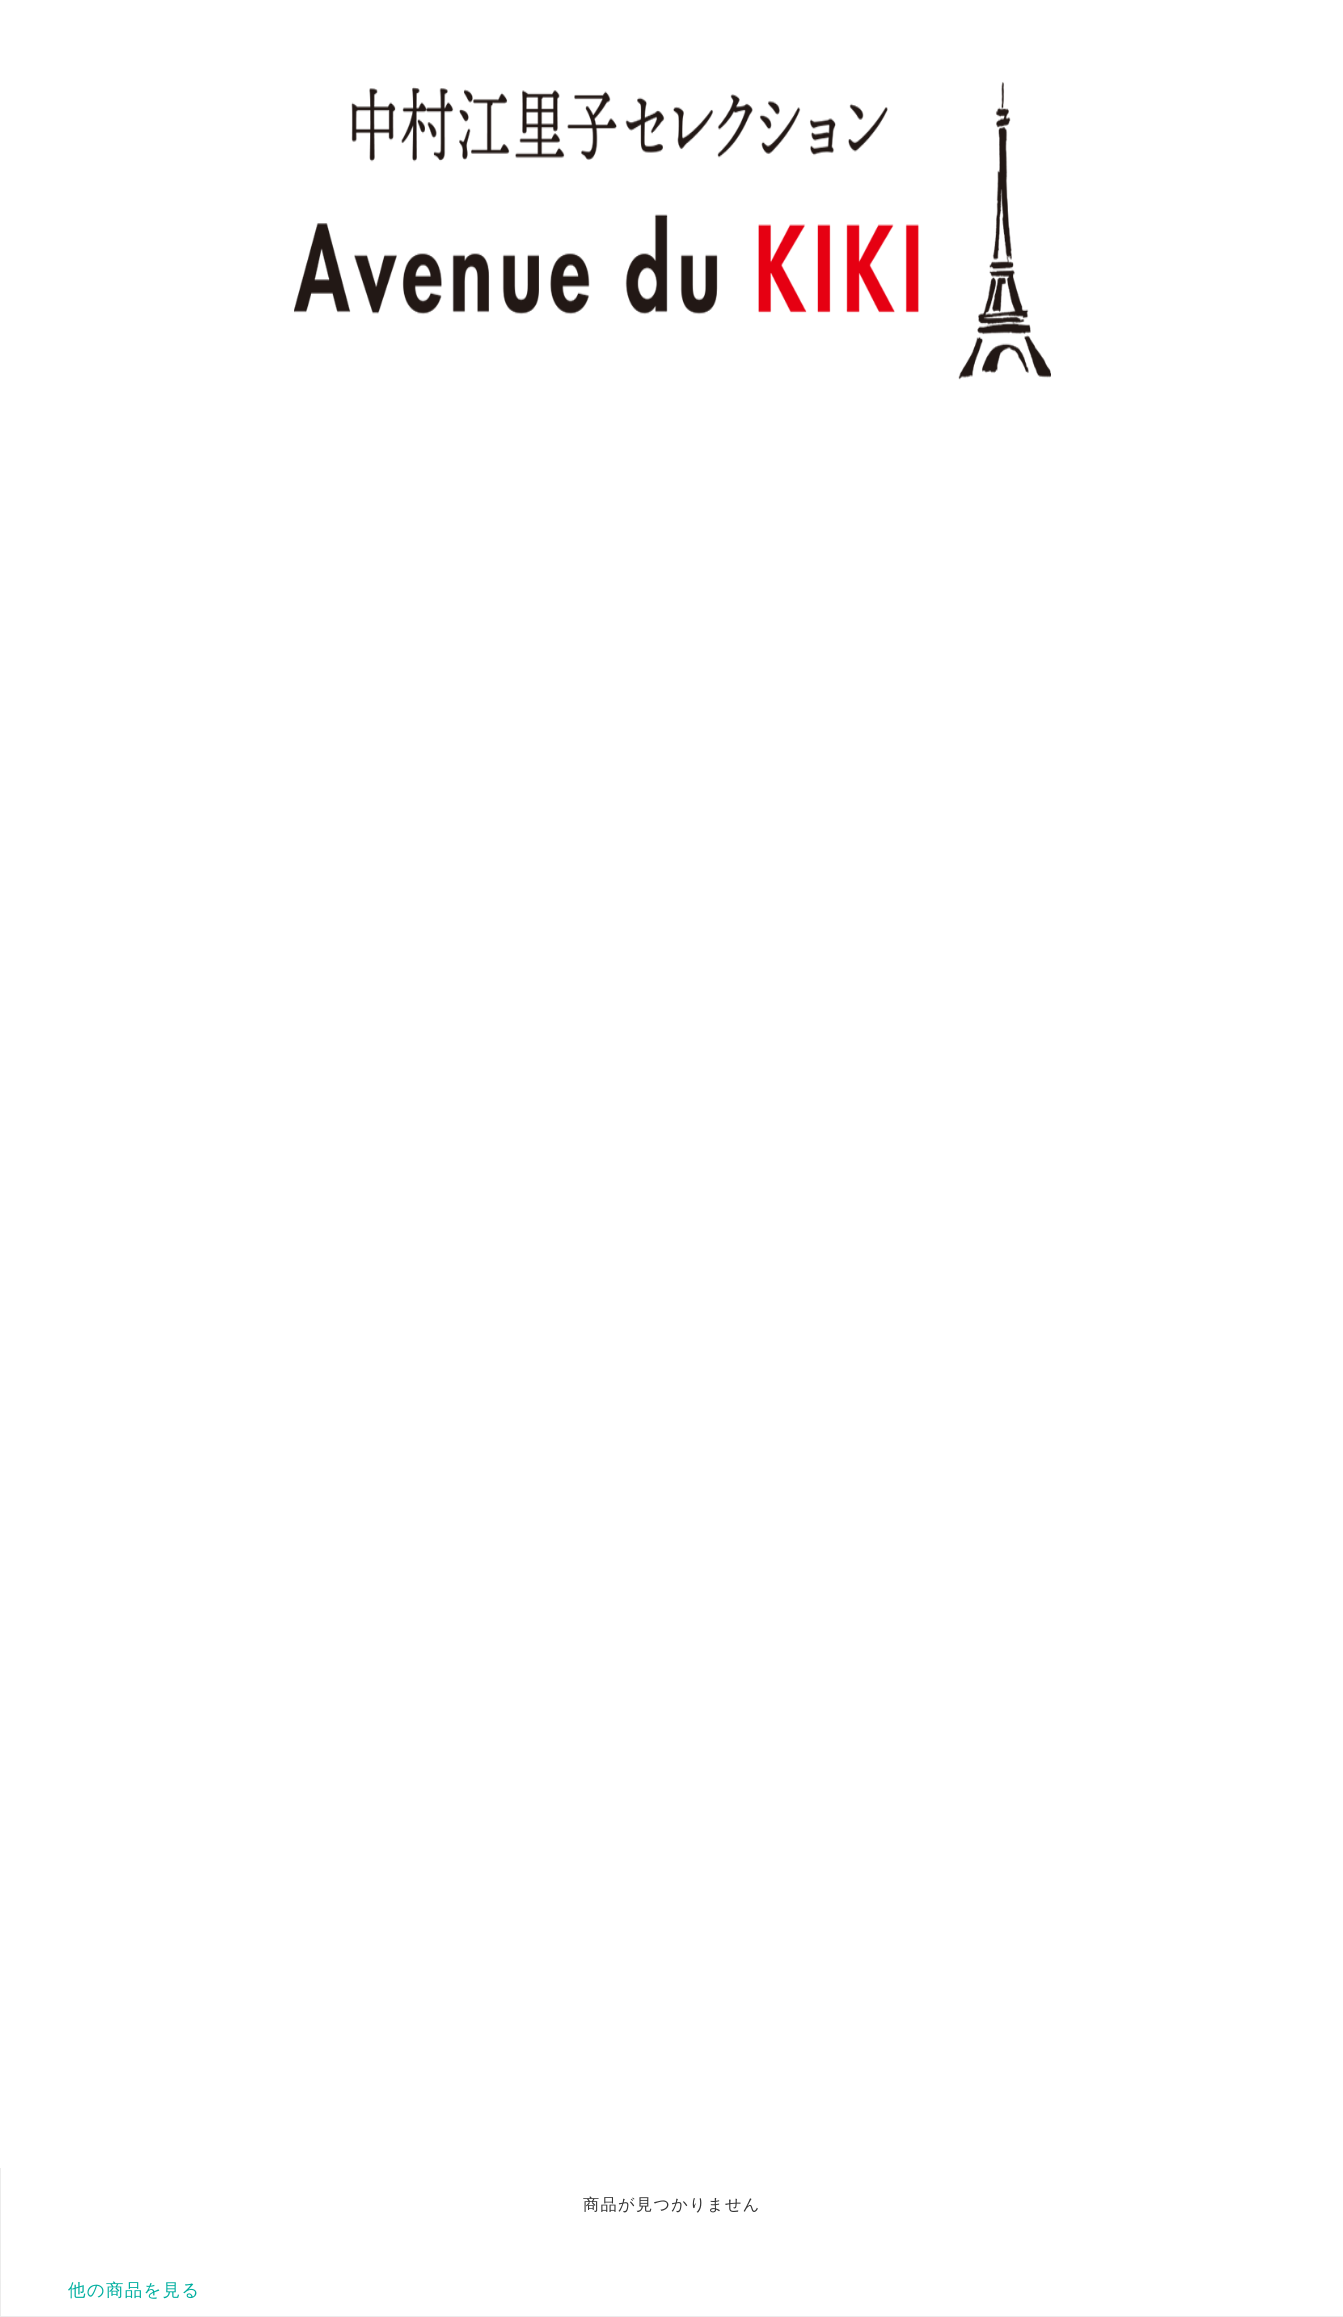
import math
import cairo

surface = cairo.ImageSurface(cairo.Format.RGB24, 1343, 2317)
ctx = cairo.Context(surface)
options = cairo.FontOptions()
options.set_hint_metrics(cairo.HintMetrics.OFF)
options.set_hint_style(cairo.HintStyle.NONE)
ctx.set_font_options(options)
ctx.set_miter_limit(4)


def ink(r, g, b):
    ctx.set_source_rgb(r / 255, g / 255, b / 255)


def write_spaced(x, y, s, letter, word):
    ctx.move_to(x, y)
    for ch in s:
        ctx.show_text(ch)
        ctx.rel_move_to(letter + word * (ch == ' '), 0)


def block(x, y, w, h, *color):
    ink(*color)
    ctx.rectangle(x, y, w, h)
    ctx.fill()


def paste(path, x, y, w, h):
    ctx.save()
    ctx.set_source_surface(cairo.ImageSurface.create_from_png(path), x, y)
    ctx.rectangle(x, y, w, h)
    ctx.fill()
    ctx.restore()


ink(255, 255, 255)
ctx.paint()
paste("pic1.png", 294, 81, 757, 299)
block(0, 2316, 1343, 1, 236, 236, 236)
block(0, 2168, 1, 149, 236, 236, 236)
ctx.select_font_face("WenQuanYi Zen Hei Medium")
ctx.set_font_size(16.25)
ink(51, 51, 51)
write_spaced(583, 2210, "商品が見つかりません", 1.25, 0)
ctx.set_font_size(17.5)
ink(0, 174, 159)
write_spaced(68, 2296, "他の商品を見る", 1.25, 0)
surface.write_to_png("screenshot.png")
